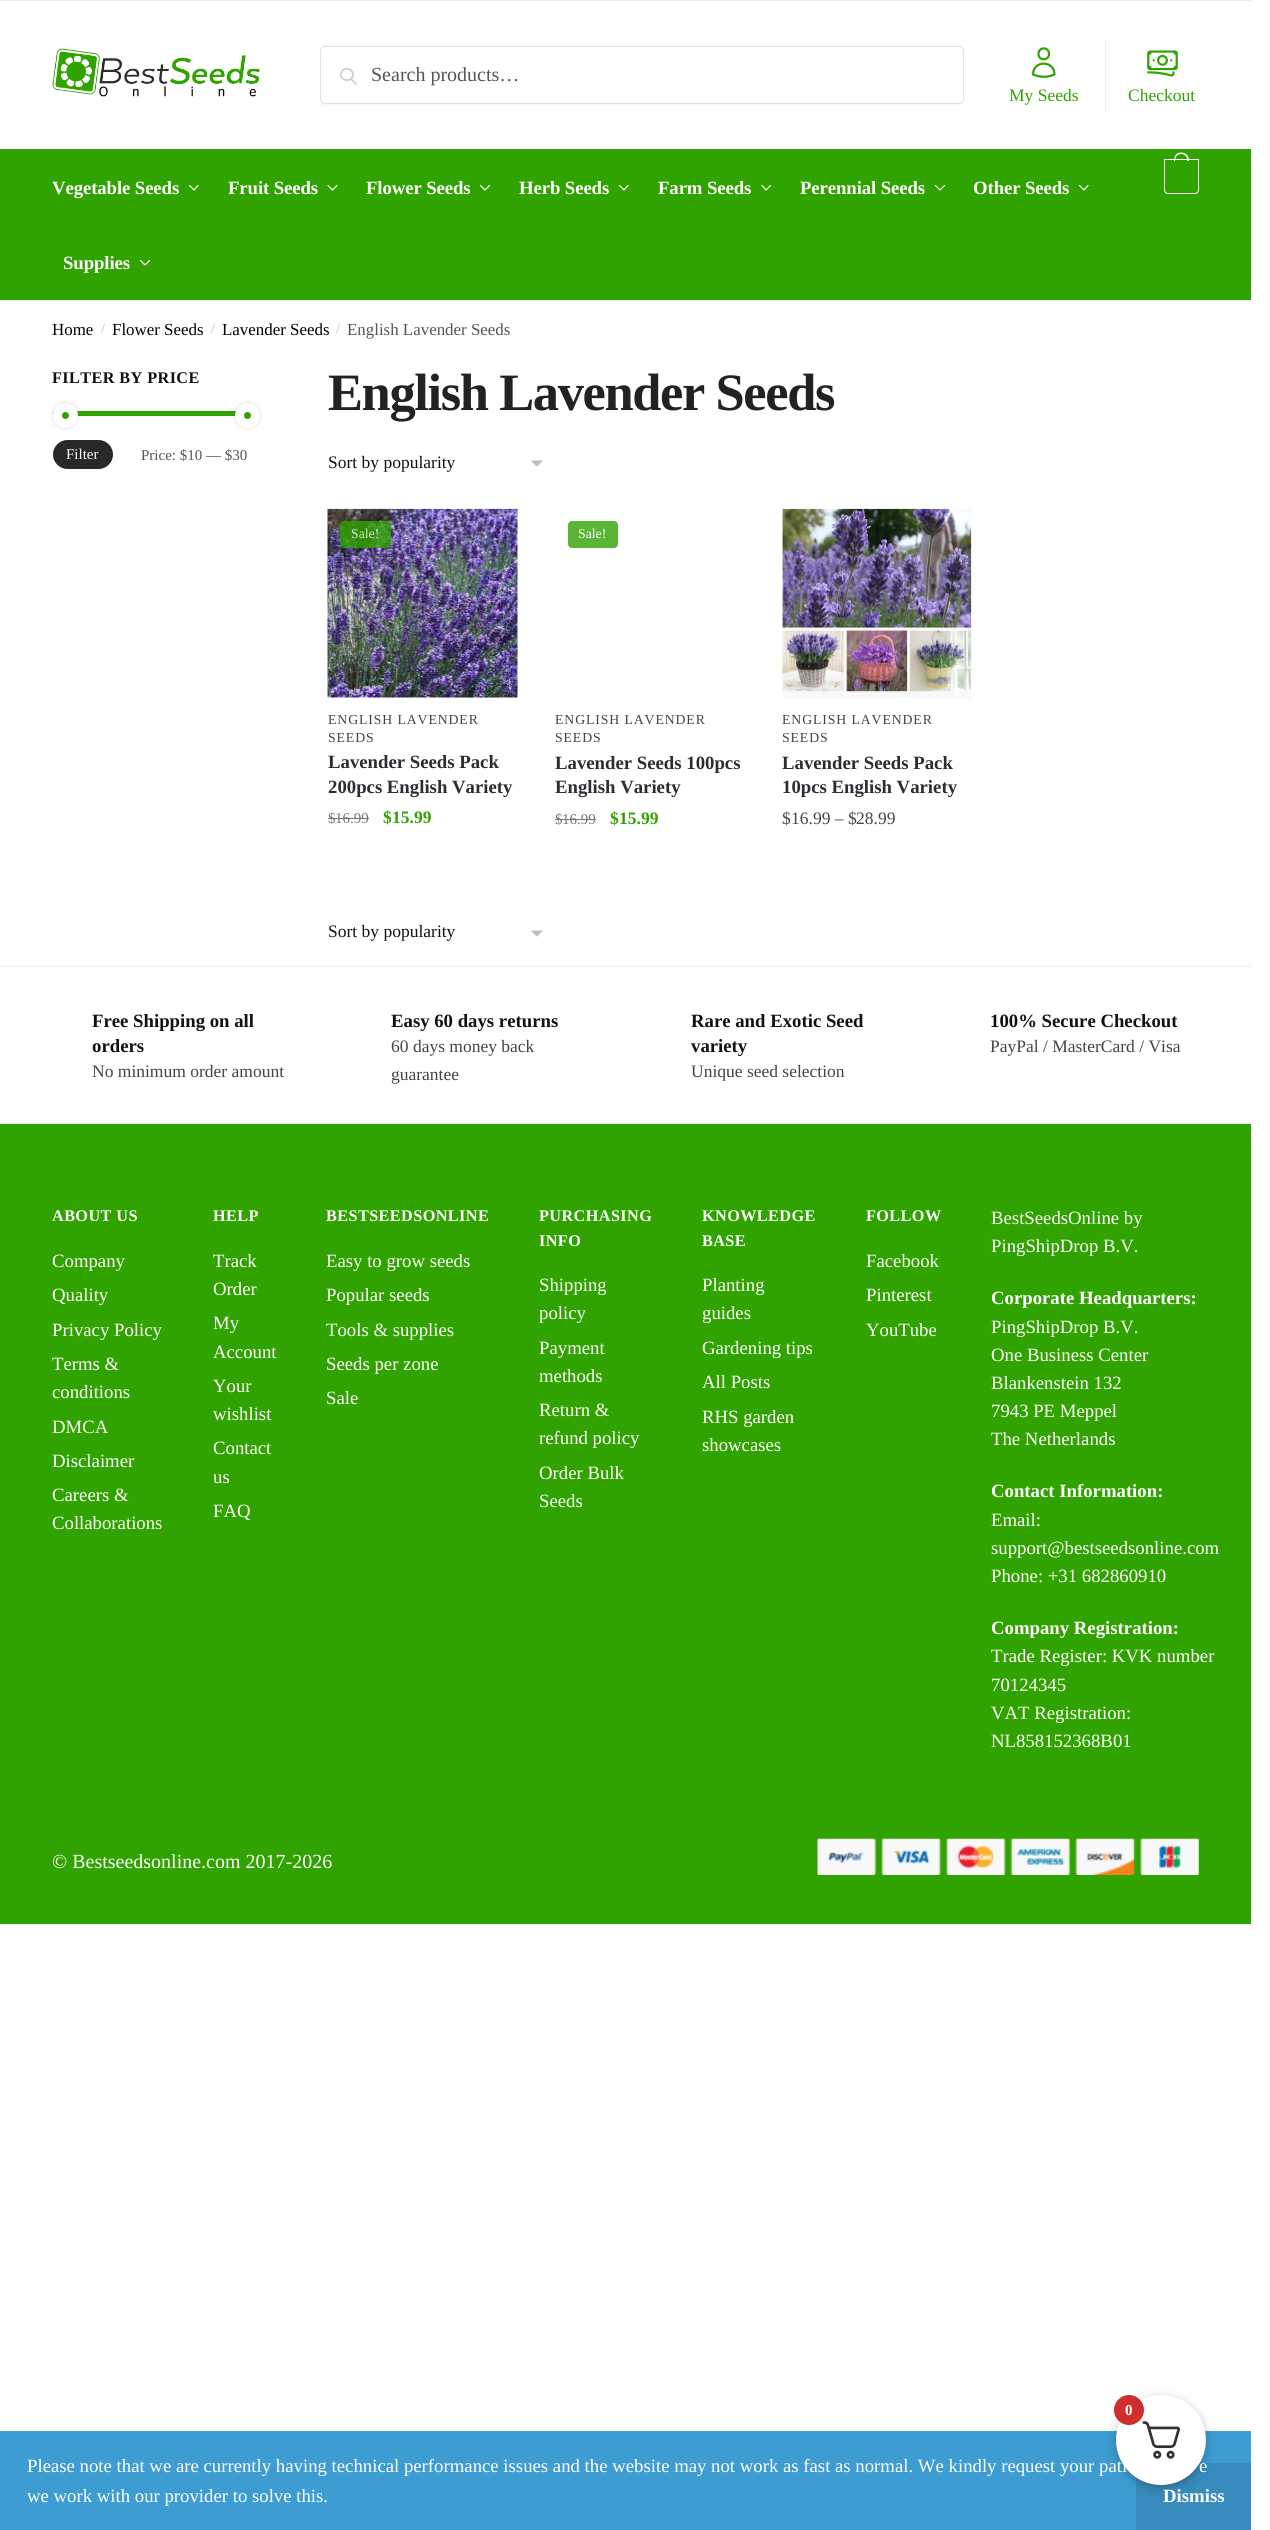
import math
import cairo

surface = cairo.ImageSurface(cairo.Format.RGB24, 1270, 2530)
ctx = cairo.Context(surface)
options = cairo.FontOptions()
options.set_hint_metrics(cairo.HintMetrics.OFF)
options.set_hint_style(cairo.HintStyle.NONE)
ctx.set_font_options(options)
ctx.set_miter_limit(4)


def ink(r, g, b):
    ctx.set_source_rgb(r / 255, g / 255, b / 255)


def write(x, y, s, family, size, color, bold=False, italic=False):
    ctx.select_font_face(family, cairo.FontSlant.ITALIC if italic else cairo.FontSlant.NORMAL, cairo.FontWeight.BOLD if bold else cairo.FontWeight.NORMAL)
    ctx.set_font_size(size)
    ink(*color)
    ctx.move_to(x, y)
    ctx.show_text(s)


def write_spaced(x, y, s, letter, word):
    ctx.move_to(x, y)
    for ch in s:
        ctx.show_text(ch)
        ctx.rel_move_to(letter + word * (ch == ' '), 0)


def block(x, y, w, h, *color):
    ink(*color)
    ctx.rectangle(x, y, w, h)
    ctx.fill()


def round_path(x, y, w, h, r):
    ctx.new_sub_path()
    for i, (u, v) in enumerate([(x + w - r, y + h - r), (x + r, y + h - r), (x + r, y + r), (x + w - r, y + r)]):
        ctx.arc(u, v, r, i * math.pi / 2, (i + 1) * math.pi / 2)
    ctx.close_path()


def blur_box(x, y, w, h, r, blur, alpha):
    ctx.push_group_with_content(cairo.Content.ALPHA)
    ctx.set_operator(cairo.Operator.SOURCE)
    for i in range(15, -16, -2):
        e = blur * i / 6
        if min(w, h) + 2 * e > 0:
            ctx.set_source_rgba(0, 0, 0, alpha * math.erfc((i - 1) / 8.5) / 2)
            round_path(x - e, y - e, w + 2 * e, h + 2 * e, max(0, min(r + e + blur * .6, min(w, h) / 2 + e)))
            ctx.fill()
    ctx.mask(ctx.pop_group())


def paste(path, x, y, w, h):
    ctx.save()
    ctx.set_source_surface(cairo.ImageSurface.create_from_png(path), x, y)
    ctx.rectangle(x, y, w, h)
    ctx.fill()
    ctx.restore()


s1 = dict(family="Liberation Serif", size=20, color=(85, 85, 85))
s2 = dict(family="Liberation Serif", size=17.5, color=(48, 163, 0))
s3 = dict(family="Liberation Serif", size=16.9, color=(0, 0, 0))
s4 = dict(family="Liberation Serif", size=14, color=(187, 187, 187))
s5 = dict(family="Liberation Serif", size=16.9, color=(85, 85, 85))
s6 = dict(family="Liberation Serif", size=15, color=(255, 255, 255))
s7 = dict(family="Liberation Serif", size=15, color=(85, 85, 85))
s8 = dict(family="Liberation Serif", size=17.5, color=(17, 17, 17))
s9 = dict(family="Liberation Serif", size=13.75, color=(214, 232, 207))
s10 = dict(family="Liberation Serif", size=18.75, color=(44, 45, 51), bold=True)
s11 = dict(family="Liberation Serif", size=15, color=(114, 118, 124))
s12 = dict(family="Liberation Serif", size=17.5, color=(48, 163, 0), bold=True)
s13 = dict(family="Liberation Serif", size=13.75, color=(255, 255, 255))
s14 = dict(family="Liberation Serif", size=17.5, color=(67, 69, 75))
s15 = dict(family="Liberation Serif", size=18.75, color=(17, 17, 17), bold=True)
s16 = dict(family="Liberation Serif", size=17.5, color=(68, 68, 68))
s17 = dict(family="Liberation Serif", size=18.75, color=(255, 255, 255))
s18 = dict(family="Liberation Serif", size=18.75, color=(255, 255, 255), bold=True)
s19 = dict(family="Liberation Serif", size=20, color=(255, 255, 255))
s20 = dict(family="Liberation Serif", size=15, color=(255, 255, 255), bold=True)

ink(255, 255, 255)
ctx.paint()
block(0, 0, 1251, 1, 238, 238, 238)
paste("pic1.png", 52, 48, 208, 49)
ink(0, 0, 0)
blur_box(320, 48, 644, 57, 5, 1, 0.05)
ink(255, 255, 255)
round_path(320.5, 46.5, 643, 57, 4.5)
ctx.fill_preserve()
ink(226, 226, 226)
ctx.set_line_width(1)
ctx.stroke()
ctx.new_path()
ctx.move_to(356, 84)
ctx.line_to(351, 79)
ctx.move_to(353, 74.5)
ctx.curve_to(353, 82, 341, 82, 341, 74.5)
ctx.curve_to(341, 67, 353, 67, 353, 74.5)
ctx.close_path()
ink(204, 204, 204)
ctx.set_line_width(1.7)
ctx.set_line_cap(cairo.LineCap.ROUND)
ctx.set_line_join(cairo.LineJoin.ROUND)
ctx.stroke()
write(371, 81, "Search products…", **s1)
ctx.new_path()
ctx.move_to(1049, 54)
ctx.curve_to(1049, 61, 1038.5, 61, 1038.5, 54)
ctx.curve_to(1038.5, 46.5, 1049, 46.5, 1049, 54)
ctx.close_path()
ctx.move_to(1033, 74.5)
ctx.curve_to(1033, 60, 1054.5, 60, 1054.5, 74.5)
ctx.curve_to(1048, 77.5, 1039.5, 77.5, 1033, 74.5)
ctx.close_path()
ink(48, 163, 0)
ctx.set_line_width(2.2)
ctx.stroke()
write(1009, 101, "My Seeds", **s2)
block(1105, 39, 1, 72, 238, 238, 238)
paste("pic2.png", 1147, 50, 31, 27)
write(1128, 101, "Checkout", **s2)
block(0, 149, 1251, 151, 48, 163, 0)
ctx.new_path()
ctx.move_to(1164.5, 159.5)
ctx.line_to(1198.5, 159.5)
ctx.line_to(1198.5, 190)
ctx.curve_to(1198.5, 192, 1197, 193.5, 1195, 193.5)
ctx.line_to(1168, 193.5)
ctx.curve_to(1166, 193.5, 1164.5, 192, 1164.5, 190)
ctx.close_path()
ink(255, 255, 255)
ctx.set_line_width(1)
ctx.set_line_cap(cairo.LineCap.BUTT)
ctx.set_line_join(cairo.LineJoin.MITER)
ctx.stroke()
ctx.set_fill_rule(cairo.FillRule.EVEN_ODD)
ctx.new_path()
ctx.move_to(1181, 152.5)
ctx.curve_to(1186.5, 152.5, 1189, 156.5, 1189, 161)
ctx.line_to(1174, 161)
ctx.curve_to(1174, 156.5, 1176, 152.5, 1181, 152.5)
ctx.close_path()
ctx.move_to(1181, 154)
ctx.curve_to(1185.5, 154, 1187.5, 157.5, 1187.5, 161)
ctx.line_to(1175, 161)
ctx.curve_to(1175, 157.5, 1177, 154, 1181, 154)
ctx.close_path()
ctx.fill()
ctx.select_font_face("Liberation Serif", cairo.FontSlant.NORMAL, cairo.FontWeight.BOLD)
ctx.set_font_size(18.75)
write_spaced(52, 194, "Vegetable Seeds", -0.1, 0)
ctx.new_path()
ctx.move_to(198, 185.5)
ctx.line_to(194, 190)
ctx.line_to(189.5, 185.5)
ctx.set_line_width(1.2)
ctx.set_line_cap(cairo.LineCap.ROUND)
ctx.set_line_join(cairo.LineJoin.ROUND)
ctx.stroke()
write_spaced(228, 194, "Fruit Seeds", -0.1, 0)
ctx.new_path()
ctx.move_to(337, 185.5)
ctx.line_to(332.5, 190)
ctx.line_to(328, 185.5)
ctx.stroke()
write_spaced(366, 194, "Flower Seeds", -0.1, 0)
ctx.new_path()
ctx.move_to(489.5, 185.5)
ctx.line_to(485, 190)
ctx.line_to(480.5, 185.5)
ctx.stroke()
write_spaced(519, 194, "Herb Seeds", -0.1, 0)
ctx.new_path()
ctx.move_to(628, 185.5)
ctx.line_to(624, 190)
ctx.line_to(619.5, 185.5)
ctx.stroke()
write_spaced(658, 194, "Farm Seeds", -0.1, 0)
ctx.new_path()
ctx.move_to(770.5, 185.5)
ctx.line_to(766, 190)
ctx.line_to(762, 185.5)
ctx.stroke()
write_spaced(800, 194, "Perennial Seeds", -0.1, 0)
ctx.new_path()
ctx.move_to(944.5, 185.5)
ctx.line_to(940, 190)
ctx.line_to(935.5, 185.5)
ctx.stroke()
write_spaced(973, 194, "Other Seeds", -0.1, 0)
ctx.new_path()
ctx.move_to(1088, 185.5)
ctx.line_to(1084, 190)
ctx.line_to(1079.5, 185.5)
ctx.stroke()
write_spaced(63, 269, "Supplies", -0.1, 0)
ctx.new_path()
ctx.move_to(149.5, 260.5)
ctx.line_to(145, 265)
ctx.line_to(140.5, 260.5)
ctx.stroke()
write(52, 335, "Home", **s3)
write(101, 333, "/", **s4)
write(112, 335, "Flower Seeds", **s3)
write(211, 333, "/", **s4)
write(222, 335, "Lavender Seeds", **s3)
write(336, 333, "/", **s4)
write(347, 335, "English Lavender Seeds", **s5)
ctx.select_font_face("Liberation Serif", cairo.FontSlant.NORMAL, cairo.FontWeight.BOLD)
ctx.set_font_size(16.25)
ink(17, 17, 17)
write_spaced(52, 383, "FILTER BY PRICE", 0.4, 0)
ink(48, 163, 0)
round_path(53, 411, 195, 5, 2.5)
ctx.fill()
ink(0, 0, 0)
blur_box(53, 403, 25, 25, 12.5, 2, 0.15)
ink(48, 163, 0)
ctx.arc(65.5, 415.5, 8, 0, 2 * math.pi)
ctx.fill_preserve()
ink(255, 255, 255)
ctx.set_line_width(9)
ctx.set_line_cap(cairo.LineCap.BUTT)
ctx.set_line_join(cairo.LineJoin.MITER)
ctx.stroke()
ink(0, 0, 0)
blur_box(235, 403, 25, 25, 12.5, 2, 0.15)
ink(48, 163, 0)
ctx.arc(247.5, 415.5, 8, 0, 2 * math.pi)
ctx.fill_preserve()
ink(255, 255, 255)
ctx.stroke()
ink(40, 40, 40)
round_path(53, 440, 60, 29, 14.5)
ctx.fill()
write(66, 459, "Filter", **s6)
write(141, 460, "Price: $10 — $30", **s7)
ctx.select_font_face("Liberation Serif", cairo.FontSlant.NORMAL, cairo.FontWeight.BOLD)
ctx.set_font_size(52.5)
ink(34, 34, 34)
write_spaced(328, 410, "English Lavender Seeds", -1.4, 0)
paste("pic3.png", 531, 460, 12, 7)
write(328, 468, "Sort by popularity", **s8)
paste("pic4.png", 327, 508, 191, 190)
ctx.set_source_rgba(0.188, 0.639, 0, 0.8)
round_path(340, 521, 51, 27, 4)
ctx.fill()
write(351, 538, "Sale!", **s9)
ink(68, 68, 68)
write_spaced(328, 724, "ENGLISH LAVENDER", 0.9, 0)
write_spaced(328, 742, "SEEDS", 0.9, 0)
write(328, 768, "Lavender Seeds Pack", **s10)
write(328, 793, "200pcs English Variety", **s10)
write(328, 823, "$", **s11)
block(328, 818, 7, 1, 114, 118, 124)
write(335, 823, "16.99", **s11)
block(335, 818, 34, 1, 114, 118, 124)
write(383, 823, "$", **s12)
write(392, 823, "15.99", **s12)
ink(89, 181, 51)
round_path(568, 521, 50, 27, 4)
ctx.fill()
write(578, 538, "Sale!", **s13)
ink(68, 68, 68)
write_spaced(555, 724, "ENGLISH LAVENDER", 0.9, 0)
write_spaced(555, 742, "SEEDS", 0.9, 0)
write(555, 769, "Lavender Seeds 100pcs", **s10)
write(555, 793, "English Variety", **s10)
write(555, 824, "$", **s11)
write(562, 824, "16.99", **s11)
block(563, 819, 33, 1, 114, 118, 124)
block(555, 819, 8, 1, 114, 118, 124)
write(610, 824, "$", **s12)
write(619, 824, "15.99", **s12)
paste("pic5.png", 782, 508, 190, 191)
ctx.select_font_face("Liberation Serif")
ctx.set_font_size(13.75)
ink(68, 68, 68)
write_spaced(782, 724, "ENGLISH LAVENDER", 0.9, 0)
write_spaced(782, 742, "SEEDS", 0.9, 0)
write(782, 769, "Lavender Seeds Pack", **s10)
write(782, 793, "10pcs English Variety", **s10)
write(782, 824, "$", **s14)
write(791, 824, "16.99 – $", **s14)
write(856, 824, "28.99", **s14)
paste("pic3.png", 531, 930, 12, 7)
write(328, 937, "Sort by popularity", **s8)
block(0, 966, 1251, 1, 238, 238, 238)
write(92, 1027, "Free Shipping on all", **s15)
write(92, 1052, "orders", **s15)
write(92, 1077, "No minimum order amount", **s16)
write(391, 1027, "Easy 60 days returns", **s15)
write(391, 1052, "60 days money back", **s16)
write(391, 1080, "guarantee", **s16)
write(691, 1027, "Rare and Exotic Seed", **s15)
write(691, 1052, "variety", **s15)
write(691, 1077, "Unique seed selection", **s16)
write(990, 1027, "100% Secure Checkout", **s15)
write(990, 1052, "PayPal / MasterCard / Visa", **s16)
block(0, 1124, 1251, 800, 48, 163, 0)
ctx.select_font_face("Liberation Serif", cairo.FontSlant.NORMAL, cairo.FontWeight.BOLD)
ctx.set_font_size(16.25)
ink(255, 255, 255)
write_spaced(52, 1221, "ABOUT US", 0.4, 0)
write(52, 1267, "Company", **s17)
write(52, 1301, "Quality", **s17)
write(52, 1336, "Privacy Policy", **s17)
write(52, 1370, "Terms &", **s17)
write(52, 1398, "conditions", **s17)
write(52, 1433, "DMCA", **s17)
write(52, 1467, "Disclaimer", **s17)
write(52, 1501, "Careers &", **s17)
write(52, 1529, "Collaborations", **s17)
ctx.select_font_face("Liberation Serif", cairo.FontSlant.NORMAL, cairo.FontWeight.BOLD)
ctx.set_font_size(16.25)
write_spaced(213, 1221, "HELP", 0.4, 0)
write(213, 1267, "Track", **s17)
write(213, 1295, "Order", **s17)
write(213, 1329, "My", **s17)
write(213, 1358, "Account", **s17)
write(213, 1392, "Your", **s17)
write(213, 1420, "wishlist", **s17)
write(213, 1454, "Contact", **s17)
write(213, 1483, "us", **s17)
write(213, 1517, "FAQ", **s17)
ctx.select_font_face("Liberation Serif", cairo.FontSlant.NORMAL, cairo.FontWeight.BOLD)
ctx.set_font_size(16.25)
write_spaced(326, 1221, "BESTSEEDSONLINE", 0.4, 0)
write(326, 1267, "Easy to grow seeds", **s17)
write(326, 1301, "Popular seeds", **s17)
write(326, 1336, "Tools & supplies", **s17)
write(326, 1370, "Seeds per zone", **s17)
write(326, 1404, "Sale", **s17)
ctx.select_font_face("Liberation Serif", cairo.FontSlant.NORMAL, cairo.FontWeight.BOLD)
ctx.set_font_size(16.25)
write_spaced(539, 1221, "PURCHASING", 0.4, 0)
write_spaced(539, 1246, "INFO", 0.4, 0)
write(539, 1291, "Shipping", **s17)
write(539, 1319, "policy", **s17)
write(539, 1354, "Payment", **s17)
write(539, 1382, "methods", **s17)
write(539, 1416, "Return &", **s17)
write(539, 1444, "refund policy", **s17)
write(539, 1479, "Order Bulk", **s17)
write(539, 1507, "Seeds", **s17)
ctx.select_font_face("Liberation Serif", cairo.FontSlant.NORMAL, cairo.FontWeight.BOLD)
ctx.set_font_size(16.25)
write_spaced(702, 1221, "KNOWLEDGE", 0.4, 0)
write_spaced(702, 1246, "BASE", 0.4, 0)
write(702, 1291, "Planting", **s17)
write(702, 1319, "guides", **s17)
write(702, 1354, "Gardening tips", **s17)
write(702, 1388, "All Posts", **s17)
write(702, 1423, "RHS garden", **s17)
write(702, 1451, "showcases", **s17)
ctx.select_font_face("Liberation Serif", cairo.FontSlant.NORMAL, cairo.FontWeight.BOLD)
ctx.set_font_size(16.25)
write_spaced(866, 1221, "FOLLOW", 0.4, 0)
write(866, 1267, "Facebook", **s17)
write(866, 1301, "Pinterest", **s17)
write(866, 1336, "YouTube", **s17)
write(991, 1224, "BestSeedsOnline by", **s17)
write(991, 1252, "PingShipDrop B.V.", **s17)
write(991, 1304, "Corporate Headquarters:", **s18)
write(991, 1333, "PingShipDrop B.V.", **s17)
write(991, 1361, "One Business Center", **s17)
write(991, 1389, "Blankenstein 132", **s17)
write(991, 1417, "7943 PE Meppel", **s17)
write(991, 1445, "The Netherlands", **s17)
write(991, 1497, "Contact Information:", **s18)
write(991, 1526, "Email:", **s17)
write(991, 1554, "support@bestseedsonline.com", **s17)
write(991, 1582, "Phone: +31 682860910", **s17)
write(991, 1634, "Company Registration:", **s18)
write(991, 1662, "Trade Register: KVK number", **s17)
write(991, 1691, "70124345", **s17)
write(991, 1719, "VAT Registration:", **s17)
write(991, 1747, "NL858152368B01", **s17)
write(52, 1868, "© Bestseedsonline.com 2017-2026", **s19)
paste("pic6.png", 817, 1838, 382, 37)
block(0, 2431, 1251, 99, 61, 156, 210)
block(1136, 2463, 115, 67, 55, 140, 189)
ink(0, 0, 0)
blur_box(1116, 2398, 90, 90, 45, 5, 0.25)
ink(255, 255, 255)
ctx.arc(1161, 2440, 45, 0, 2 * math.pi)
ctx.fill()
paste("pic7.png", 1142, 2421, 38, 38)
ink(207, 46, 46)
ctx.arc(1129, 2410, 15, 0, 2 * math.pi)
ctx.fill()
write(1125, 2415, "0", **s20)
write(27, 2472, "Please note that we are currently having technical performance issues and the website may not work as fast as normal. We kindly request your pati", **s17)
write(1199, 2472, "e", **s17)
write(27, 2502, "we work with our provider to solve this.", **s17)
write(1163, 2502, "Dismiss", **s18)
surface.write_to_png("screenshot.png")
